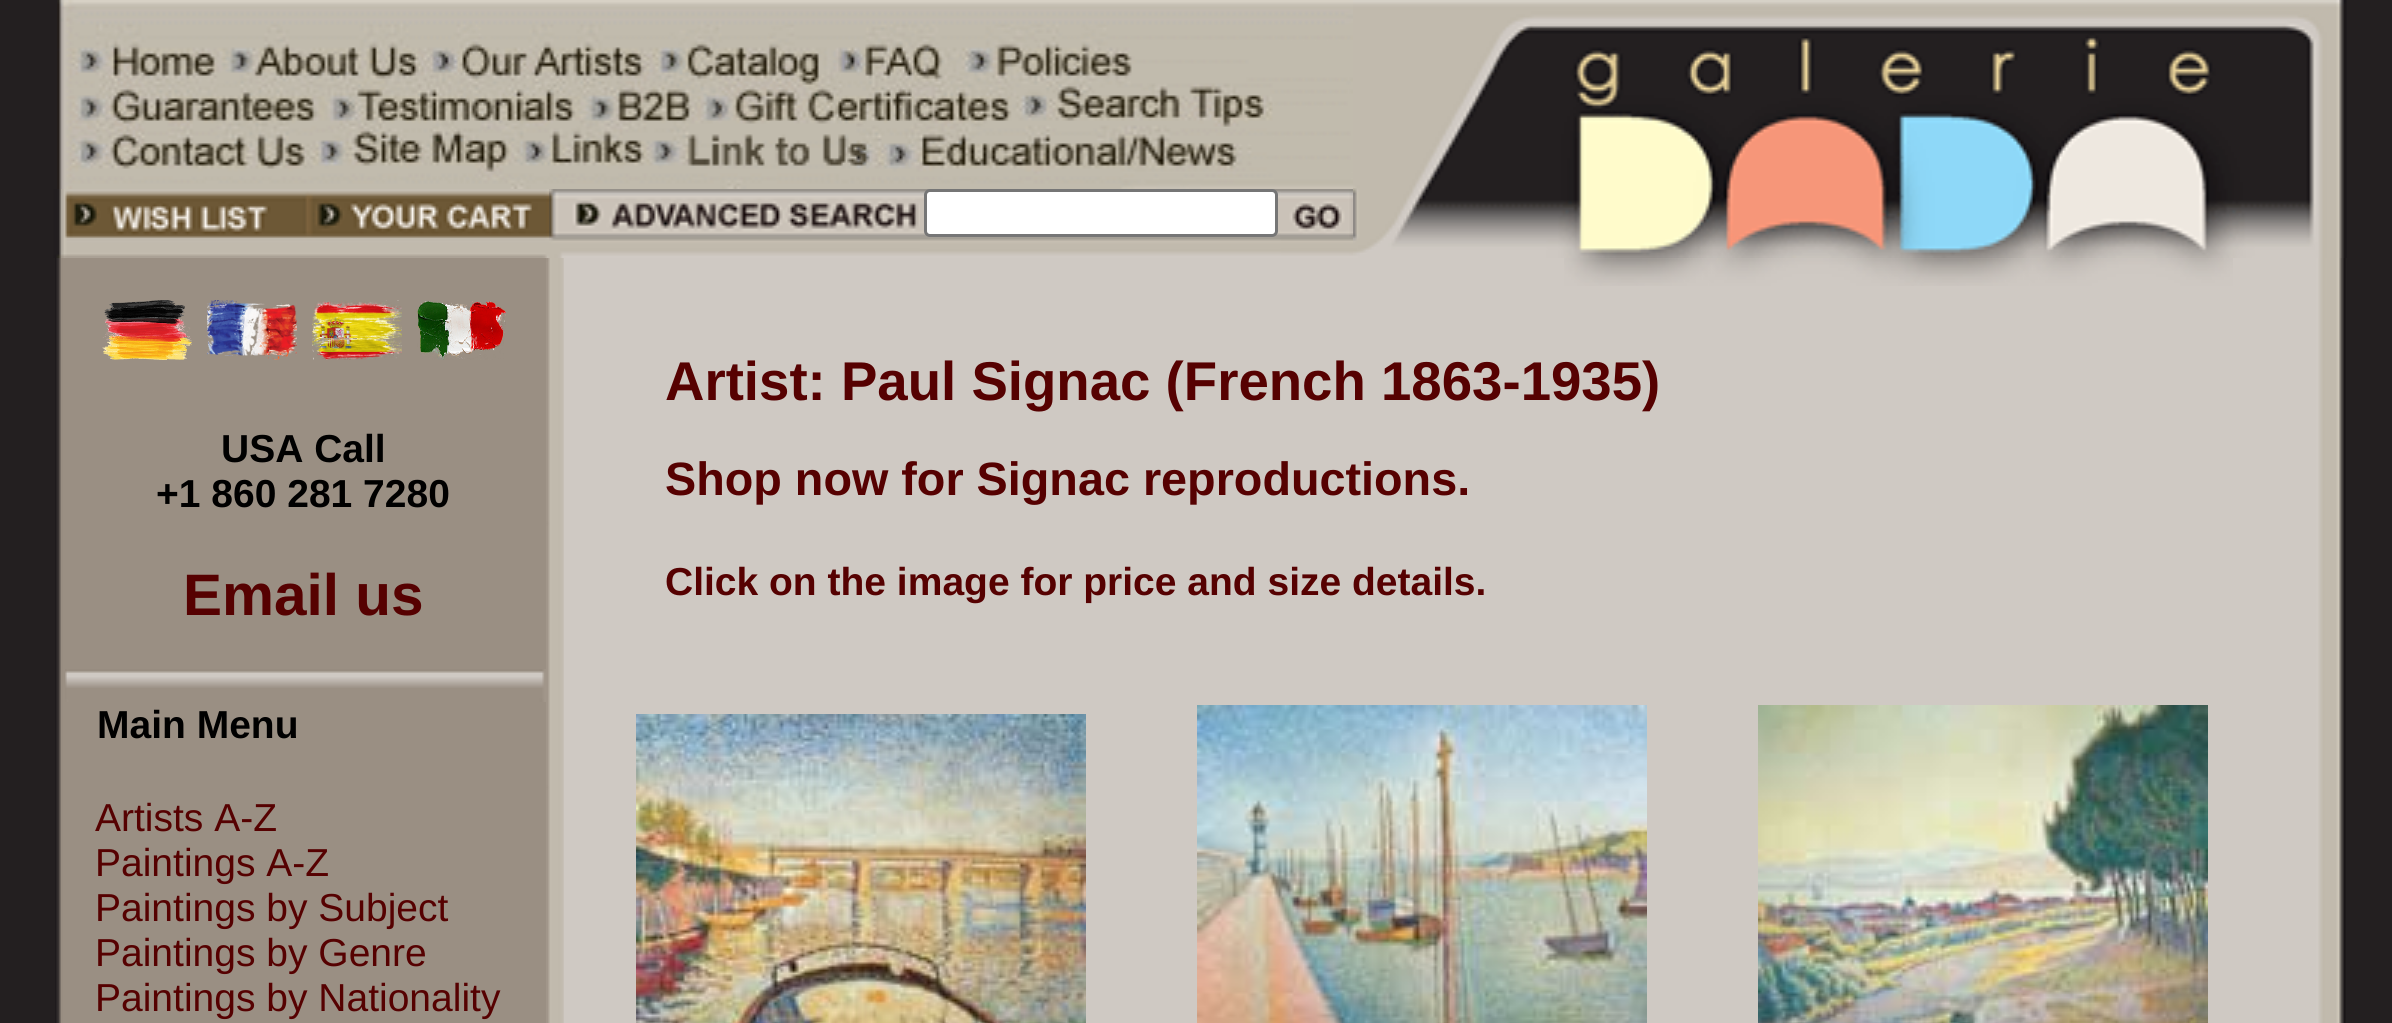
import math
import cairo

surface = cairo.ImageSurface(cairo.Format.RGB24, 2392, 1023)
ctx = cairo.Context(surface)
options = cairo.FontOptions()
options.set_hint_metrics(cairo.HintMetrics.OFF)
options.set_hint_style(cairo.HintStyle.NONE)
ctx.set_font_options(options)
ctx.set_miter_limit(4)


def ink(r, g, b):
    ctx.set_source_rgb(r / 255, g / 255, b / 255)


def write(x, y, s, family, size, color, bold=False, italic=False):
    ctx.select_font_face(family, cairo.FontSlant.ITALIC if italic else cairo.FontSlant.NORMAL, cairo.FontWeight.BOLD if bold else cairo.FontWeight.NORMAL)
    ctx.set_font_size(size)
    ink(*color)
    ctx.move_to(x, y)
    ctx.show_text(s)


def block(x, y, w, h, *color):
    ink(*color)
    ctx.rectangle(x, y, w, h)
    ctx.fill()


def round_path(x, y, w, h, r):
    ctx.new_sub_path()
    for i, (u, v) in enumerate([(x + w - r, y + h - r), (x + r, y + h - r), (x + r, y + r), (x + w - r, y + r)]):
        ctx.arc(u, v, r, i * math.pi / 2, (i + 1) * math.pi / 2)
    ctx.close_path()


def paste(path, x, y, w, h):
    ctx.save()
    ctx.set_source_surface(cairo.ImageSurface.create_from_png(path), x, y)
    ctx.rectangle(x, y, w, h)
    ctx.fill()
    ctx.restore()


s1 = dict(family="Liberation Sans", size=39, color=(0, 0, 0), bold=True)
s2 = dict(family="Liberation Sans", size=58.5, color=(86, 1, 1), bold=True)
s3 = dict(family="Liberation Sans", size=39, color=(86, 1, 1))
s4 = dict(family="Liberation Sans", size=54.6, color=(86, 1, 1), bold=True)
s5 = dict(family="Liberation Sans", size=46.75, color=(86, 1, 1), bold=True)
s6 = dict(family="Liberation Sans", size=39, color=(86, 1, 1), bold=True)

ink(35, 31, 32)
ctx.paint()
paste("pic1.png", 57, 0, 1296, 189)
paste("pic2.png", 1353, 0, 994, 258)
paste("pic3.png", 920, 189, 4, 69)
paste("pic4.png", 48, 189, 501, 69)
paste("pic5.png", 549, 189, 371, 69)
paste("pic6.png", 924, 189, 357, 69)
ink(255, 255, 255)
round_path(925.5, 190.5, 351, 45, 4.5)
ctx.fill_preserve()
ink(118, 118, 118)
ctx.set_line_width(3)
ctx.stroke()
paste("pic7.png", 1281, 189, 72, 69)
paste("pic8.png", 55, 258, 8, 765)
block(63, 258, 483, 765, 154, 143, 131)
paste("pic9.png", 102, 300, 90, 60)
paste("pic10.png", 207, 300, 90, 60)
paste("pic11.png", 312, 300, 90, 60)
paste("pic12.png", 417, 301, 89, 59)
write(221, 462, "USA Call", **s1)
write(156, 507, "+1 860 281 7280", **s1)
write(183, 615, "Email us", **s2)
paste("pic13.png", 65, 669, 481, 33)
write(97, 738, "Main Menu", **s1)
write(95, 831, "Artists A-Z", **s3)
write(95, 876, "Paintings A-Z", **s3)
write(95, 921, "Paintings by Subject", **s3)
write(95, 966, "Paintings by Genre", **s3)
write(95, 1011, "Paintings by Nationality", **s3)
paste("pic14.png", 546, 258, 18, 765)
block(564, 258, 1752, 765, 207, 201, 195)
paste("pic15.png", 1564, 258, 669, 28)
write(665, 400, "Artist: Paul Signac (French 1863-1935)", **s4)
write(665, 495, "Shop now for Signac reproductions.", **s5)
write(665, 595, "Click on the image for price and size details.", **s6)
paste("pic16.png", 636, 714, 450, 309)
paste("pic17.png", 1197, 705, 450, 318)
paste("pic18.png", 1758, 705, 450, 318)
paste("pic19.png", 2316, 258, 30, 765)
surface.write_to_png("screenshot.png")
